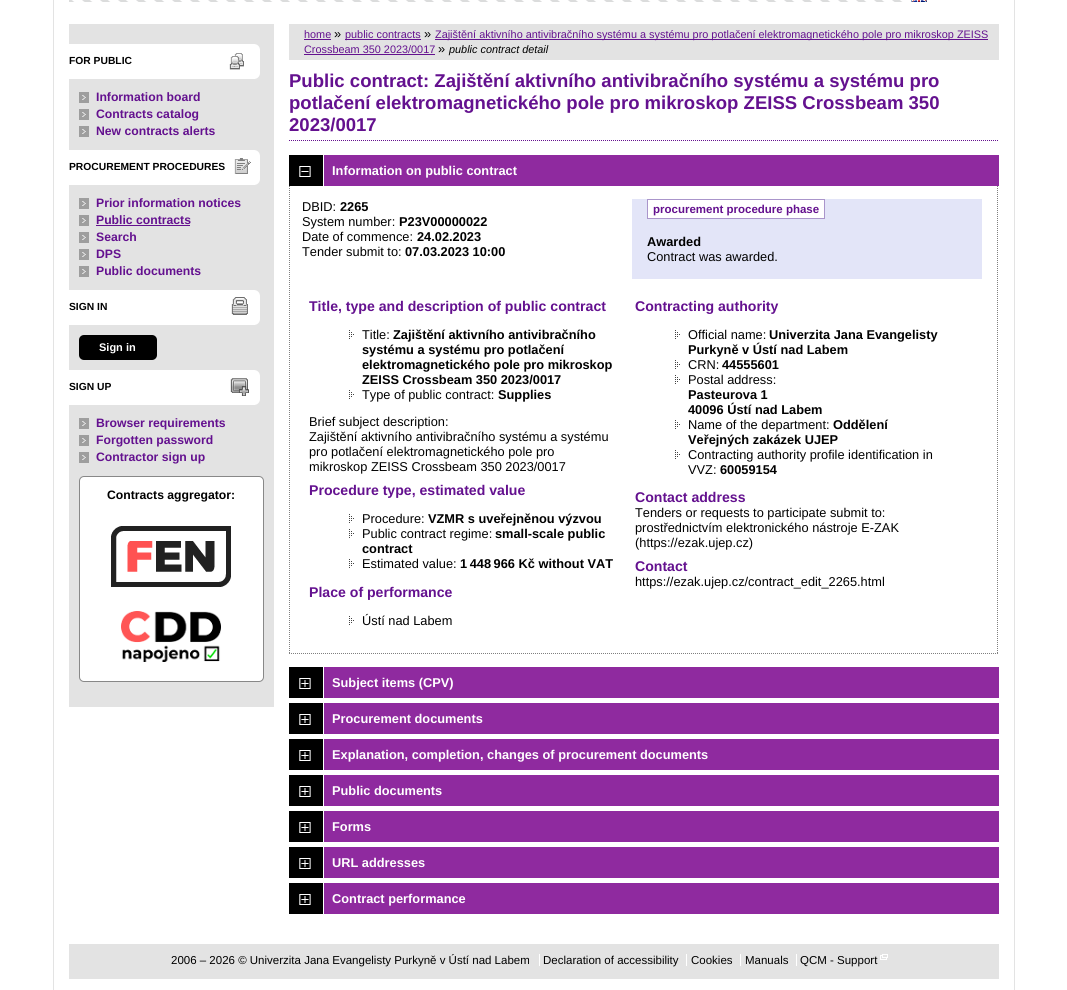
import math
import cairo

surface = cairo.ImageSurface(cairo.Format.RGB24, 1067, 990)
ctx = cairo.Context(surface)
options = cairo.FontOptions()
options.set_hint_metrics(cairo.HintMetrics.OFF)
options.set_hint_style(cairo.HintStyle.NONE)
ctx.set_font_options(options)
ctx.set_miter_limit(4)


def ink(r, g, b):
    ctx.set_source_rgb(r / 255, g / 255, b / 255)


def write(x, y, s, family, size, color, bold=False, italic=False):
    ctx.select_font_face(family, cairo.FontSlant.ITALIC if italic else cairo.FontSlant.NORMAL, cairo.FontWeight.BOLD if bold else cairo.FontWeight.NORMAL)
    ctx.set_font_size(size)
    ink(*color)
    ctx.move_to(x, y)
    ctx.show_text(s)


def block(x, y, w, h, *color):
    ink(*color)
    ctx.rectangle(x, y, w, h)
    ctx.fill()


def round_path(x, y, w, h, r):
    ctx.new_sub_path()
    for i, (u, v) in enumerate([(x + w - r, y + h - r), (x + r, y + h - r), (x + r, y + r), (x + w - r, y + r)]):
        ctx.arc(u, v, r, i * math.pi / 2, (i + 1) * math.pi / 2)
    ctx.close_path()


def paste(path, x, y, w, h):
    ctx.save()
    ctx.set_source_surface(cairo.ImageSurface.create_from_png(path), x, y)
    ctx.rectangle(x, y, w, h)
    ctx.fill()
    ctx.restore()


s1 = dict(family="Liberation Sans", size=10.3, color=(0, 0, 0), bold=True)
s2 = dict(family="Liberation Sans", size=12.2, color=(100, 17, 143), bold=True)
s3 = dict(family="Liberation Sans", size=11, color=(255, 255, 255), bold=True)
s4 = dict(family="Liberation Sans", size=12.2, color=(0, 0, 0), bold=True)
s5 = dict(family="Liberation Sans", size=10.88, color=(100, 17, 143))
s6 = dict(family="Liberation Sans", size=12.8, color=(0, 0, 0))
s7 = dict(family="Liberation Sans", size=10.88, color=(0, 0, 0), italic=True)
s8 = dict(family="Liberation Sans", size=18.55, color=(100, 17, 143), bold=True)
s9 = dict(family="Liberation Sans", size=12.8, color=(255, 255, 255), bold=True)
s10 = dict(family="Liberation Sans", size=12.8, color=(0, 0, 0), bold=True)
s11 = dict(family="Liberation Sans", size=11.5, color=(100, 17, 143), bold=True)
s12 = dict(family="Liberation Sans", size=14.1, color=(100, 17, 143), bold=True)
s13 = dict(family="Liberation Sans", size=11.5, color=(0, 0, 0))

ink(255, 255, 255)
ctx.paint()
block(1014, 0, 1, 990, 227, 227, 227)
block(53, 0, 1, 990, 227, 227, 227)
paste("pic1.png", 69, 0, 834, 2)
paste("pic2.png", 911, 0, 16, 2)
block(69, 24, 205, 683, 227, 227, 227)
paste("pic3.png", 69, 44, 191, 35)
write(69, 64, "FOR PUBLIC", **s1)
paste("pic4.png", 79, 92, 10, 11)
write(96, 101, "Information board", **s2)
paste("pic4.png", 79, 109, 10, 11)
write(96, 118, "Contracts catalog", **s2)
paste("pic4.png", 79, 126, 10, 11)
write(96, 135, "New contracts alerts", **s2)
paste("pic5.png", 69, 150, 191, 35)
write(69, 170, "PROCUREMENT PROCEDURES", **s1)
paste("pic4.png", 79, 198, 10, 11)
write(96, 207, "Prior information notices", **s2)
paste("pic4.png", 79, 215, 10, 11)
write(96, 224, "Public contracts", **s2)
block(96, 225, 94, 1, 100, 17, 143)
paste("pic4.png", 79, 232, 10, 11)
write(96, 241, "Search", **s2)
paste("pic4.png", 79, 249, 10, 11)
write(96, 258, "DPS", **s2)
paste("pic4.png", 79, 266, 10, 11)
write(96, 275, "Public documents", **s2)
paste("pic6.png", 69, 290, 191, 35)
write(69, 310, "SIGN IN", **s1)
round_path(79, 335, 78, 25, 5)
ctx.fill()
write(99, 351, "Sign in", **s3)
paste("pic7.png", 69, 370, 191, 35)
write(69, 390, "SIGN UP", **s1)
paste("pic4.png", 79, 418, 10, 11)
write(96, 427, "Browser requirements", **s2)
paste("pic4.png", 79, 435, 10, 11)
write(96, 444, "Forgotten password", **s2)
paste("pic4.png", 79, 452, 10, 11)
write(96, 461, "Contractor sign up", **s2)
ink(255, 255, 255)
round_path(79.5, 476.5, 184, 205, 4.5)
ctx.fill_preserve()
ink(136, 136, 136)
ctx.set_line_width(1)
ctx.stroke()
write(107, 499, "Contracts aggregator:", **s4)
paste("pic8.png", 111, 526, 120, 61)
paste("pic9.png", 121, 611, 100, 51)
block(289, 24, 710, 36, 227, 227, 227)
write(304, 38, "home", **s5)
block(304, 39, 27, 1, 100, 17, 143)
write(334, 38, "»", **s6)
block(345, 39, 76, 1, 100, 17, 143)
write(345, 38, "public contracts", **s5)
write(424, 38, "»", **s6)
block(435, 39, 553, 1, 100, 17, 143)
write(435, 38, "Zajištění aktivního antivibračního systému a systému pro potlačení elektromagnetického pole pro mikroskop ZEISS", **s5)
write(304, 53, "Crossbeam 350 2023/0017", **s5)
block(304, 54, 131, 1, 100, 17, 143)
write(438, 53, "»", **s6)
write(449, 53, "public contract detail", **s7)
ctx.new_path()
ctx.move_to(289, 140.5)
ctx.line_to(999, 140.5)
ink(100, 17, 143)
ctx.set_dash([1, 1])
ctx.stroke()
write(289, 87, "Public contract: Zajištění aktivního antivibračního systému a systému pro", **s8)
write(289, 109, "potlačení elektromagnetického pole pro mikroskop ZEISS Crossbeam 350", **s8)
write(289, 131, "2023/0017", **s8)
paste("pic10.png", 289, 155, 710, 31)
paste("pic11.png", 299, 155, 25, 31)
write(332, 175, "Information on public contract", **s9)
ctx.new_path()
ctx.move_to(997.5, 186)
ctx.line_to(997.5, 654)
ink(127, 127, 127)
ctx.stroke()
ctx.new_path()
ctx.move_to(289, 653.5)
ctx.line_to(998, 653.5)
ctx.stroke()
ctx.new_path()
ctx.move_to(289.5, 186)
ctx.line_to(289.5, 654)
ctx.stroke()
write(302, 211, "DBID:", **s6)
write(340, 211, "2265", **s10)
block(632, 199, 350, 80, 227, 229, 248)
ink(255, 255, 255)
ctx.rectangle(647.5, 199.5, 177, 19)
ctx.fill_preserve()
ink(170, 149, 203)
ctx.set_dash([])
ctx.stroke()
write(653, 213, "procurement procedure phase", **s11)
write(647, 246, "Awarded", **s10)
write(647, 261, "Contract was awarded.", **s6)
write(302, 226, "System number:", **s6)
write(399, 226, "P23V00000022", **s10)
write(302, 241, "Date of commence:", **s6)
write(417, 241, "24.02.2023", **s10)
write(302, 256, "Tender submit to:", **s6)
write(405, 256, "07.03.2023 10:00", **s10)
write(309, 311, "Title, type and description of public contract", **s12)
paste("pic12.png", 349, 330, 5, 9)
write(362, 339, "Title:", **s6)
write(393, 339, "Zajištění aktivního antivibračního", **s10)
write(362, 354, "systému a systému pro potlačení", **s10)
write(362, 369, "elektromagnetického pole pro mikroskop", **s10)
write(362, 384, "ZEISS Crossbeam 350 2023/0017", **s10)
paste("pic12.png", 349, 390, 5, 9)
write(362, 399, "Type of public contract:", **s6)
write(498, 399, "Supplies", **s10)
write(309, 426, "Brief subject description:", **s6)
write(309, 441, "Zajištění aktivního antivibračního systému a systému", **s6)
write(309, 456, "pro potlačení elektromagnetického pole pro", **s6)
write(309, 471, "mikroskop ZEISS Crossbeam 350 2023/0017", **s6)
write(309, 495, "Procedure type, estimated value", **s12)
paste("pic12.png", 349, 514, 5, 9)
write(362, 523, "Procedure:", **s6)
write(428, 523, "VZMR s uveřejněnou výzvou", **s10)
paste("pic12.png", 349, 529, 5, 9)
write(362, 538, "Public contract regime:", **s6)
write(495, 538, "small-scale public", **s10)
write(362, 553, "contract", **s10)
paste("pic12.png", 349, 559, 5, 9)
write(362, 568, "Estimated value:", **s6)
write(460, 568, "1 448 966 Kč without VAT", **s10)
write(309, 597, "Place of performance", **s12)
paste("pic12.png", 349, 616, 5, 9)
write(362, 625, "Ústí nad Labem", **s6)
write(635, 311, "Contracting authority", **s12)
paste("pic12.png", 675, 330, 5, 9)
write(688, 339, "Official name:", **s6)
write(769, 339, "Univerzita Jana Evangelisty", **s10)
write(688, 354, "Purkyně v Ústí nad Labem", **s10)
paste("pic12.png", 675, 360, 5, 9)
write(688, 369, "CRN:", **s6)
write(722, 369, "44555601", **s10)
paste("pic12.png", 675, 375, 5, 9)
write(688, 384, "Postal address:", **s6)
write(688, 399, "Pasteurova 1", **s10)
write(688, 414, "40096 Ústí nad Labem", **s10)
paste("pic12.png", 675, 420, 5, 9)
write(688, 429, "Name of the department:", **s6)
write(833, 429, "Oddělení", **s10)
write(688, 444, "Veřejných zakázek UJEP", **s10)
paste("pic12.png", 675, 450, 5, 9)
write(688, 459, "Contracting authority profile identification in", **s6)
write(688, 474, "VVZ:", **s6)
write(720, 474, "60059154", **s10)
write(635, 502, "Contact address", **s12)
write(635, 517, "Tenders or requests to participate submit to:", **s6)
write(635, 532, "prostřednictvím elektronického nástroje E-ZAK", **s6)
write(635, 547, "(https://ezak.ujep.cz)", **s6)
write(635, 571, "Contact", **s12)
write(635, 586, "https://ezak.ujep.cz/contract_edit_2265.html", **s6)
paste("pic10.png", 289, 667, 710, 31)
paste("pic13.png", 299, 667, 25, 31)
write(332, 687, "Subject items (CPV)", **s9)
paste("pic10.png", 289, 703, 710, 31)
paste("pic13.png", 299, 703, 25, 31)
write(332, 723, "Procurement documents", **s9)
paste("pic10.png", 289, 739, 710, 31)
paste("pic13.png", 299, 739, 25, 31)
write(332, 759, "Explanation, completion, changes of procurement documents", **s9)
paste("pic10.png", 289, 775, 710, 31)
paste("pic13.png", 299, 775, 25, 31)
write(332, 795, "Public documents", **s9)
paste("pic10.png", 289, 811, 710, 31)
paste("pic13.png", 299, 811, 25, 31)
write(332, 831, "Forms", **s9)
paste("pic10.png", 289, 847, 710, 31)
paste("pic13.png", 299, 847, 25, 31)
write(332, 867, "URL addresses", **s9)
paste("pic10.png", 289, 883, 710, 31)
paste("pic13.png", 299, 883, 25, 31)
write(332, 903, "Contract performance", **s9)
block(69, 944, 930, 35, 227, 227, 227)
write(171, 964, "2006 – 2026 © Univerzita Jana Evangelisty Purkyně v Ústí nad Labem", **s13)
block(539, 954, 1, 12, 255, 255, 255)
write(543, 964, "Declaration of accessibility", **s13)
block(686, 954, 1, 12, 255, 255, 255)
write(691, 964, "Cookies", **s13)
block(740, 954, 1, 12, 255, 255, 255)
write(745, 964, "Manuals", **s13)
block(796, 954, 1, 12, 255, 255, 255)
write(800, 964, "QCM - Support", **s13)
paste("pic14.png", 880, 954, 8, 6)
surface.write_to_png("screenshot.png")
